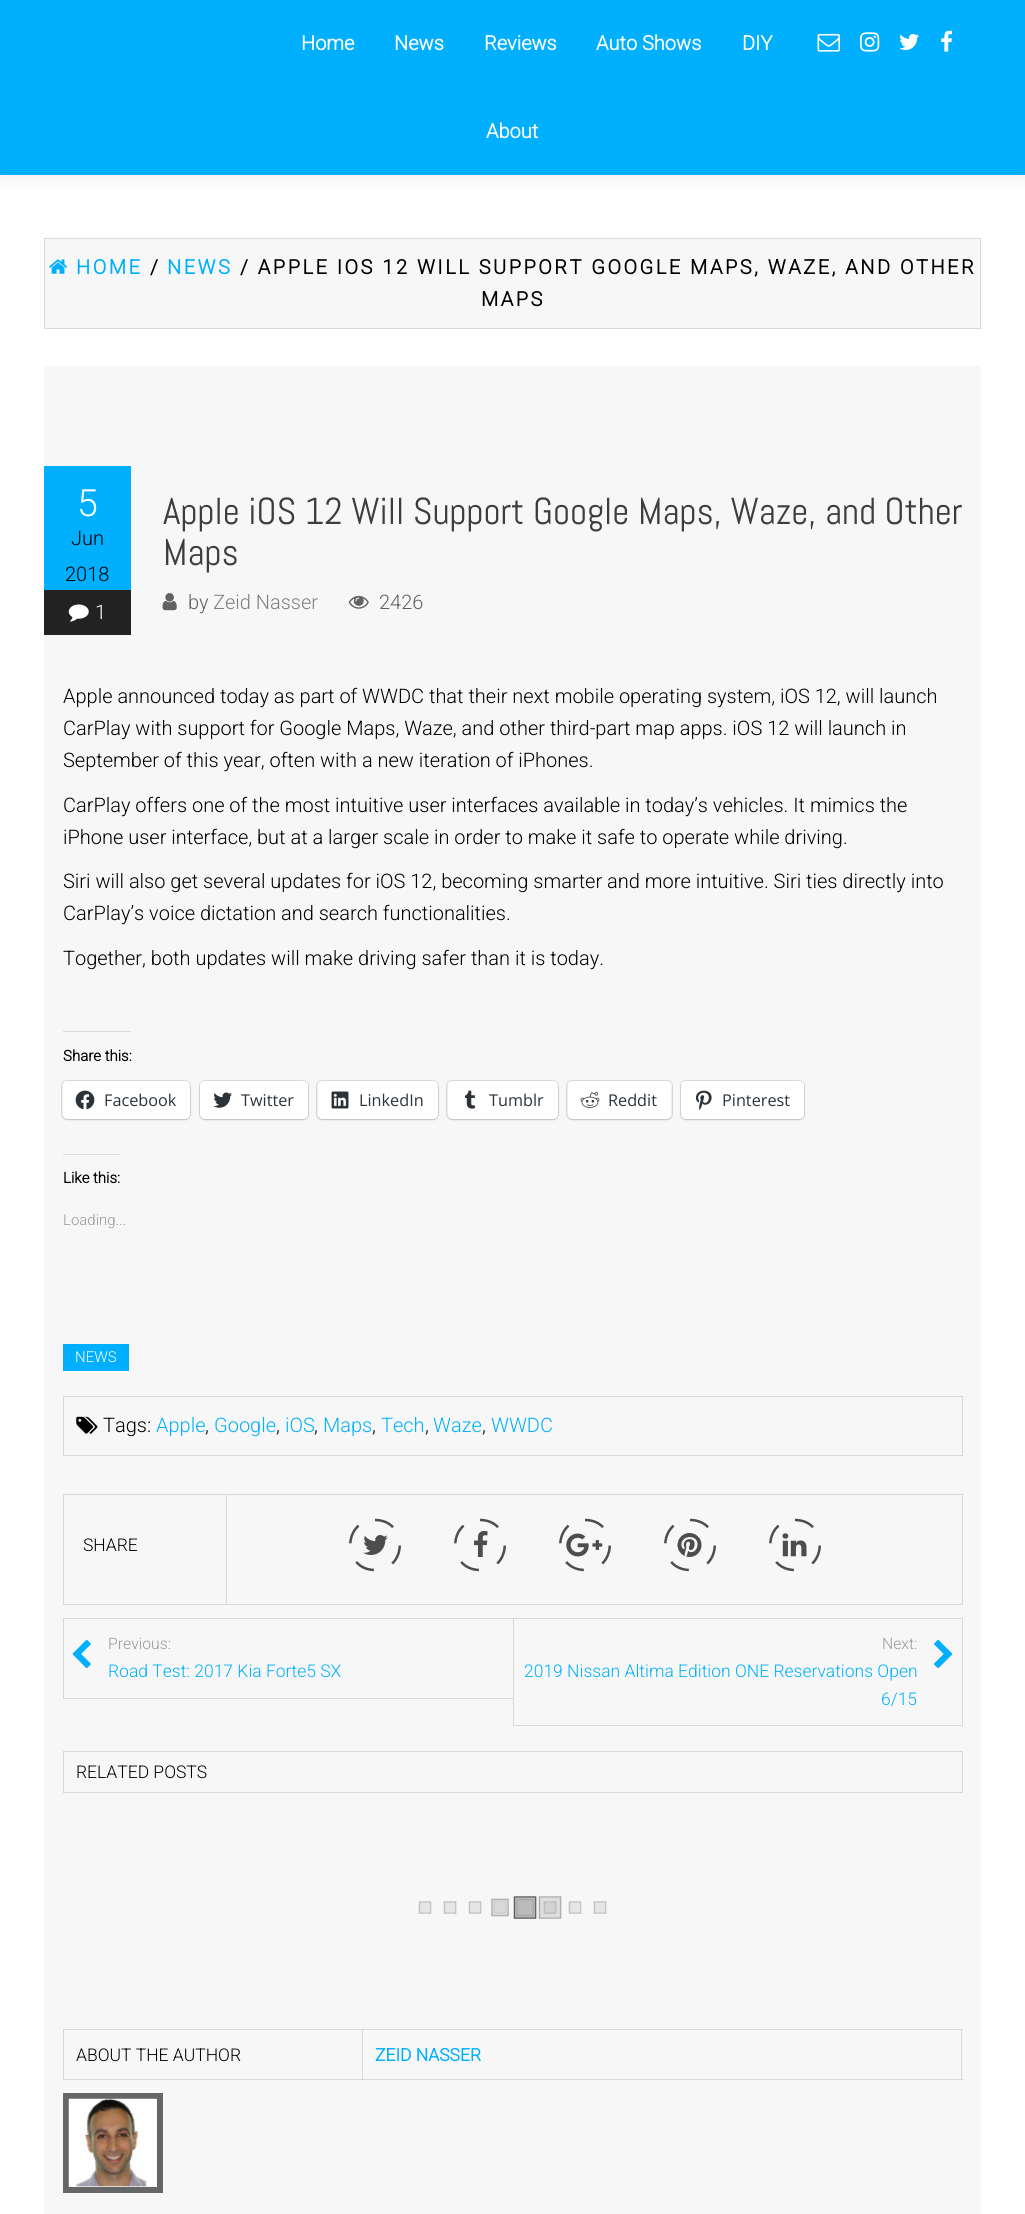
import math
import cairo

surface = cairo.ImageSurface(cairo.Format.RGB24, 1025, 2214)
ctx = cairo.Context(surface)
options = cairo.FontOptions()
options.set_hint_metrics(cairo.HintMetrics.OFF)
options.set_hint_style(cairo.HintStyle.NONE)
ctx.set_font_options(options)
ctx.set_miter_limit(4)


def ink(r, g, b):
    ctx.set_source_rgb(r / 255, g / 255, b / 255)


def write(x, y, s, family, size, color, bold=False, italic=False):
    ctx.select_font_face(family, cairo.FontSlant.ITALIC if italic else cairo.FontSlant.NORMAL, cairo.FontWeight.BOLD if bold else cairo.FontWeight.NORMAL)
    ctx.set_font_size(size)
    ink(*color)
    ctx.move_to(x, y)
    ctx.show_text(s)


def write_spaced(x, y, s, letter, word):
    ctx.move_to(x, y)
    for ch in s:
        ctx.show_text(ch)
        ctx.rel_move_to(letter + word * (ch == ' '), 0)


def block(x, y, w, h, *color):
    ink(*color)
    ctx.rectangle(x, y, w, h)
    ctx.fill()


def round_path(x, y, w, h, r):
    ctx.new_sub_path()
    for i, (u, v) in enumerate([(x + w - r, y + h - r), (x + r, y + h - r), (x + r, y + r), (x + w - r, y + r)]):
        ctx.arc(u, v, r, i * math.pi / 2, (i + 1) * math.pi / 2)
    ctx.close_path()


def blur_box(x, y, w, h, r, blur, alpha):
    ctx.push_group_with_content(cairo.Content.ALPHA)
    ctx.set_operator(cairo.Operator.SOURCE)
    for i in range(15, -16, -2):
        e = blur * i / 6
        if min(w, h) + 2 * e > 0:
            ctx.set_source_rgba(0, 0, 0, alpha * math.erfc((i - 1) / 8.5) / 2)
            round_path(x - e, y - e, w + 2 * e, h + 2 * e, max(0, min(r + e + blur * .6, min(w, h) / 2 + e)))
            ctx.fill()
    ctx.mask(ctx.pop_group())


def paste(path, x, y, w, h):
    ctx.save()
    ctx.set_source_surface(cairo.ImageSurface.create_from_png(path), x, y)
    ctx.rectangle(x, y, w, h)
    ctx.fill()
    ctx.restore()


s1 = dict(family="Roboto", size=20, color=(255, 255, 255), bold=True)
s2 = dict(family="Roboto Light", size=37.5, color=(255, 255, 255))
s3 = dict(family="Roboto Light", size=20, color=(0, 0, 0))
s4 = dict(family="Roboto Light", size=20, color=(255, 255, 255))
s5 = dict(family="Abel", size=37.5, color=(61, 61, 61))
s6 = dict(family="Roboto Light", size=20, color=(98, 98, 98))
s7 = dict(family="Roboto Light", size=20, color=(128, 128, 128))
s8 = dict(family="Roboto", size=15, color=(0, 0, 0), bold=True)
s9 = dict(family="Open Sans", size=16.25, color=(44, 51, 56))
s10 = dict(family="Roboto Light", size=15, color=(153, 153, 153))
s11 = dict(family="Roboto Light", size=15, color=(255, 255, 255))
s12 = dict(family="Roboto Light", size=20, color=(0, 176, 255))
s13 = dict(family="Roboto Light", size=17.5, color=(0, 0, 0))
s14 = dict(family="Roboto Light", size=15.75, color=(153, 153, 153))
s15 = dict(family="Roboto Light", size=17.5, color=(0, 176, 255))
s16 = dict(family="Roboto", size=17.5, color=(0, 176, 255), bold=True)

ink(255, 255, 255)
ctx.paint()
ink(0, 0, 0)
blur_box(0, 0, 1025, 175, 0, 9.5, 0.1)
block(0, 0, 1025, 175, 0, 176, 255)
write(301, 50, "Home", **s1)
write(394, 50, "News", **s1)
write(484, 50, "Reviews", **s1)
write(596, 50, "Auto Shows", **s1)
write(742, 50, "DIY", **s1)
write(486, 138, "About", **s1)
paste("pic1.png", 817, 33, 23, 19)
paste("pic2.png", 860, 32, 20, 20)
paste("pic3.png", 899, 33, 20, 17)
paste("pic4.png", 941, 30, 12, 22)
ink(247, 247, 247)
ctx.rectangle(44.5, 238.5, 936, 90)
ctx.fill_preserve()
ink(216, 216, 216)
ctx.set_line_width(1)
ctx.stroke()
paste("pic5.png", 49, 259, 18, 15)
ink(0, 176, 255)
write_spaced(76, 274, "HOME", 2.5, 0)
ink(0, 0, 0)
write_spaced(150, 274, "/", 2.5, 0)
ink(0, 176, 255)
write_spaced(167, 274, "NEWS", 2.5, 0)
ink(0, 0, 0)
write_spaced(240, 274, "/ APPLE IOS 12 WILL SUPPORT GOOGLE MAPS, WAZE, AND OTHER", 2.5, 0)
write_spaced(481, 306, "MAPS", 2.5, 0)
block(44, 366, 937, 1848, 247, 247, 247)
block(44, 466, 87, 124, 0, 176, 255)
write(77, 516, "5", **s2)
write(71, 545, "Jun", **s3)
write(65, 581, "2018", **s3)
block(44, 590, 87, 45, 34, 34, 34)
paste("pic6.png", 68, 604, 21, 18)
write(95, 619, "1", **s4)
write(163, 524, "Apple iOS 12 Will Support Google Maps, Waze, and Other", **s5)
write(163, 565, "Maps", **s5)
paste("pic7.png", 162, 593, 15, 18)
write(188, 609, "by", **s6)
write(213, 609, "Zeid Nasser", **s7)
paste("pic8.png", 348, 595, 21, 14)
write(379, 609, "2426", **s6)
write(63, 703, "Apple announced today as part of WWDC that their next mobile operating system, iOS 12, will launch", **s3)
write(63, 735, "CarPlay with support for Google Maps, Waze, and other third-part map apps. iOS 12 will launch in", **s3)
write(63, 767, "September of this year, often with a new iteration of iPhones.", **s3)
write(63, 812, "CarPlay offers one of the most intuitive user interfaces available in today’s vehicles. It mimics the", **s3)
write(63, 844, "iPhone user interface, but at a larger scale in order to make it safe to operate while driving.", **s3)
write(63, 888, "Siri will also get several updates for iOS 12, becoming smarter and more intuitive. Siri ties directly into", **s3)
write(63, 920, "CarPlay’s voice dictation and search functionalities.", **s3)
write(63, 965, "Together, both updates will make driving safer than it is today.", **s3)
block(63, 1031, 68, 1, 220, 220, 222)
write(63, 1061, "Share this:", **s8)
round_path(61.5, 1080.5, 129, 39, 5.5)
ink(217, 217, 217)
ctx.stroke()
ink(0, 0, 0)
blur_box(63, 1083, 127, 37, 5, 1, 0.12)
ink(255, 255, 255)
round_path(63, 1081, 127, 38, 5)
ctx.fill()
paste("pic9.png", 75, 1090, 20, 20)
write(104, 1106, "Facebook", **s9)
round_path(199.5, 1080.5, 109, 39, 5.5)
ink(217, 217, 217)
ctx.stroke()
ink(0, 0, 0)
blur_box(200, 1083, 108, 37, 5, 1, 0.12)
ink(255, 255, 255)
round_path(200, 1081, 108, 38, 5)
ctx.fill()
paste("pic10.png", 213, 1092, 19, 16)
write(241, 1106, "Twitter", **s9)
round_path(316.5, 1080.5, 122, 39, 5.5)
ink(217, 217, 217)
ctx.stroke()
ink(0, 0, 0)
blur_box(318, 1083, 120, 37, 5, 1, 0.12)
ink(255, 255, 255)
round_path(318, 1081, 120, 38, 5)
ctx.fill()
paste("pic11.png", 331, 1091, 18, 18)
write(359, 1106, "LinkedIn", **s9)
round_path(446.5, 1080.5, 112, 39, 5.5)
ink(217, 217, 217)
ctx.stroke()
ink(0, 0, 0)
blur_box(448, 1083, 110, 37, 5, 1, 0.12)
ink(255, 255, 255)
round_path(448, 1081, 110, 38, 5)
ctx.fill()
paste("pic12.png", 464, 1090, 12, 19)
write(489, 1106, "Tumblr", **s9)
round_path(566.5, 1080.5, 106, 39, 5.5)
ink(217, 217, 217)
ctx.stroke()
ink(0, 0, 0)
blur_box(568, 1083, 103, 37, 5, 1, 0.12)
ink(255, 255, 255)
round_path(568, 1081, 103, 38, 5)
ctx.fill()
paste("pic13.png", 580, 1092, 20, 16)
write(608, 1106, "Reddit", **s9)
round_path(680.5, 1080.5, 124, 39, 5.5)
ink(217, 217, 217)
ctx.stroke()
ink(0, 0, 0)
blur_box(681, 1083, 123, 37, 5, 1, 0.12)
ink(255, 255, 255)
round_path(681, 1081, 123, 38, 5)
ctx.fill()
paste("pic14.png", 695, 1090, 17, 20)
write(722, 1106, "Pinterest", **s9)
block(63, 1154, 57, 1, 220, 220, 222)
write(63, 1183, "Like this:", **s8)
write(63, 1225, "Loading...", **s10)
block(63, 1344, 66, 27, 0, 176, 255)
write(75, 1362, "NEWS", **s11)
ctx.rectangle(63.5, 1396.5, 899, 59)
ink(216, 216, 216)
ctx.stroke()
paste("pic15.png", 76, 1416, 22, 18)
write(103, 1432, "Tags:", **s3)
write(156, 1432, "Apple", **s12)
write(205, 1432, ",", **s3)
write(214, 1432, "Google", **s12)
write(276, 1432, ",", **s3)
write(285, 1432, "iOS", **s12)
write(314, 1432, ",", **s3)
write(323, 1432, "Maps", **s12)
write(372, 1432, ",", **s3)
write(381, 1432, "Tech", **s12)
write(425, 1432, ",", **s3)
write(433, 1432, "Waze", **s12)
write(482, 1432, ",", **s3)
write(491, 1432, "WWDC", **s12)
ctx.rectangle(63.5, 1494.5, 899, 110)
ink(216, 216, 216)
ctx.stroke()
write(83, 1551, "SHARE", **s13)
block(226, 1495, 1, 109, 216, 216, 216)
ctx.new_path()
ctx.move_to(375, 1520)
ctx.curve_to(408, 1520, 408, 1570, 375, 1570)
ctx.curve_to(342, 1570, 342, 1520, 375, 1520)
ctx.close_path()
ink(77, 77, 77)
ctx.set_line_width(2.5)
ctx.set_dash([20, 20])
ctx.stroke()
paste("pic16.png", 363, 1535, 25, 20)
ctx.new_path()
ctx.move_to(480, 1520)
ctx.curve_to(513, 1520, 513, 1570, 480, 1570)
ctx.curve_to(447, 1570, 447, 1520, 480, 1520)
ctx.close_path()
ctx.stroke()
paste("pic17.png", 474, 1531, 14, 26)
ctx.new_path()
ctx.move_to(585, 1520)
ctx.curve_to(618, 1520, 618, 1570, 585, 1570)
ctx.curve_to(552, 1570, 552, 1520, 585, 1520)
ctx.close_path()
ctx.stroke()
paste("pic18.png", 566, 1533, 37, 24)
ctx.new_path()
ctx.move_to(690, 1520)
ctx.curve_to(723, 1520, 723, 1570, 690, 1570)
ctx.curve_to(657, 1570, 657, 1520, 690, 1520)
ctx.close_path()
ctx.stroke()
paste("pic19.png", 677, 1533, 25, 24)
ctx.new_path()
ctx.move_to(795, 1520)
ctx.curve_to(828, 1520, 828, 1570, 795, 1570)
ctx.curve_to(762, 1570, 762, 1520, 795, 1520)
ctx.close_path()
ctx.stroke()
paste("pic20.png", 782, 1533, 25, 24)
block(63, 1618, 450, 1, 216, 216, 216)
block(63, 1698, 450, 1, 216, 216, 216)
block(63, 1618, 1, 81, 216, 216, 216)
paste("pic21.png", 72, 1639, 19, 29)
write(108, 1649, "Previous:", **s14)
write(108, 1677, "Road Test: 2017 Kia Forte5 SX", **s15)
ctx.rectangle(513.5, 1618.5, 449, 107)
ink(216, 216, 216)
ctx.set_line_width(1)
ctx.set_dash([])
ctx.stroke()
write(882, 1649, "Next:", **s14)
paste("pic22.png", 934, 1639, 19, 29)
write(524, 1677, "2019 Nissan Altima Edition ONE Reservations Open", **s15)
write(881, 1705, "6/15", **s15)
ctx.rectangle(63.5, 1751.5, 899, 41)
ink(216, 216, 216)
ctx.stroke()
write(76, 1778, "RELATED POSTS", **s13)
paste("pic23.png", 418, 1896, 189, 23)
ctx.rectangle(63.5, 2029.5, 299, 50)
ink(216, 216, 216)
ctx.stroke()
write(76, 2061, "ABOUT THE AUTHOR", **s13)
block(363, 2029, 600, 1, 216, 216, 216)
block(961, 2029, 1, 51, 216, 216, 216)
block(363, 2079, 600, 1, 216, 216, 216)
write(375, 2061, "ZEID NASSER", **s16)
ctx.rectangle(66, 2096, 94, 94)
ink(102, 102, 102)
ctx.set_line_width(6)
ctx.stroke()
paste("pic24.png", 68, 2098, 89, 89)
surface.write_to_png("screenshot.png")
